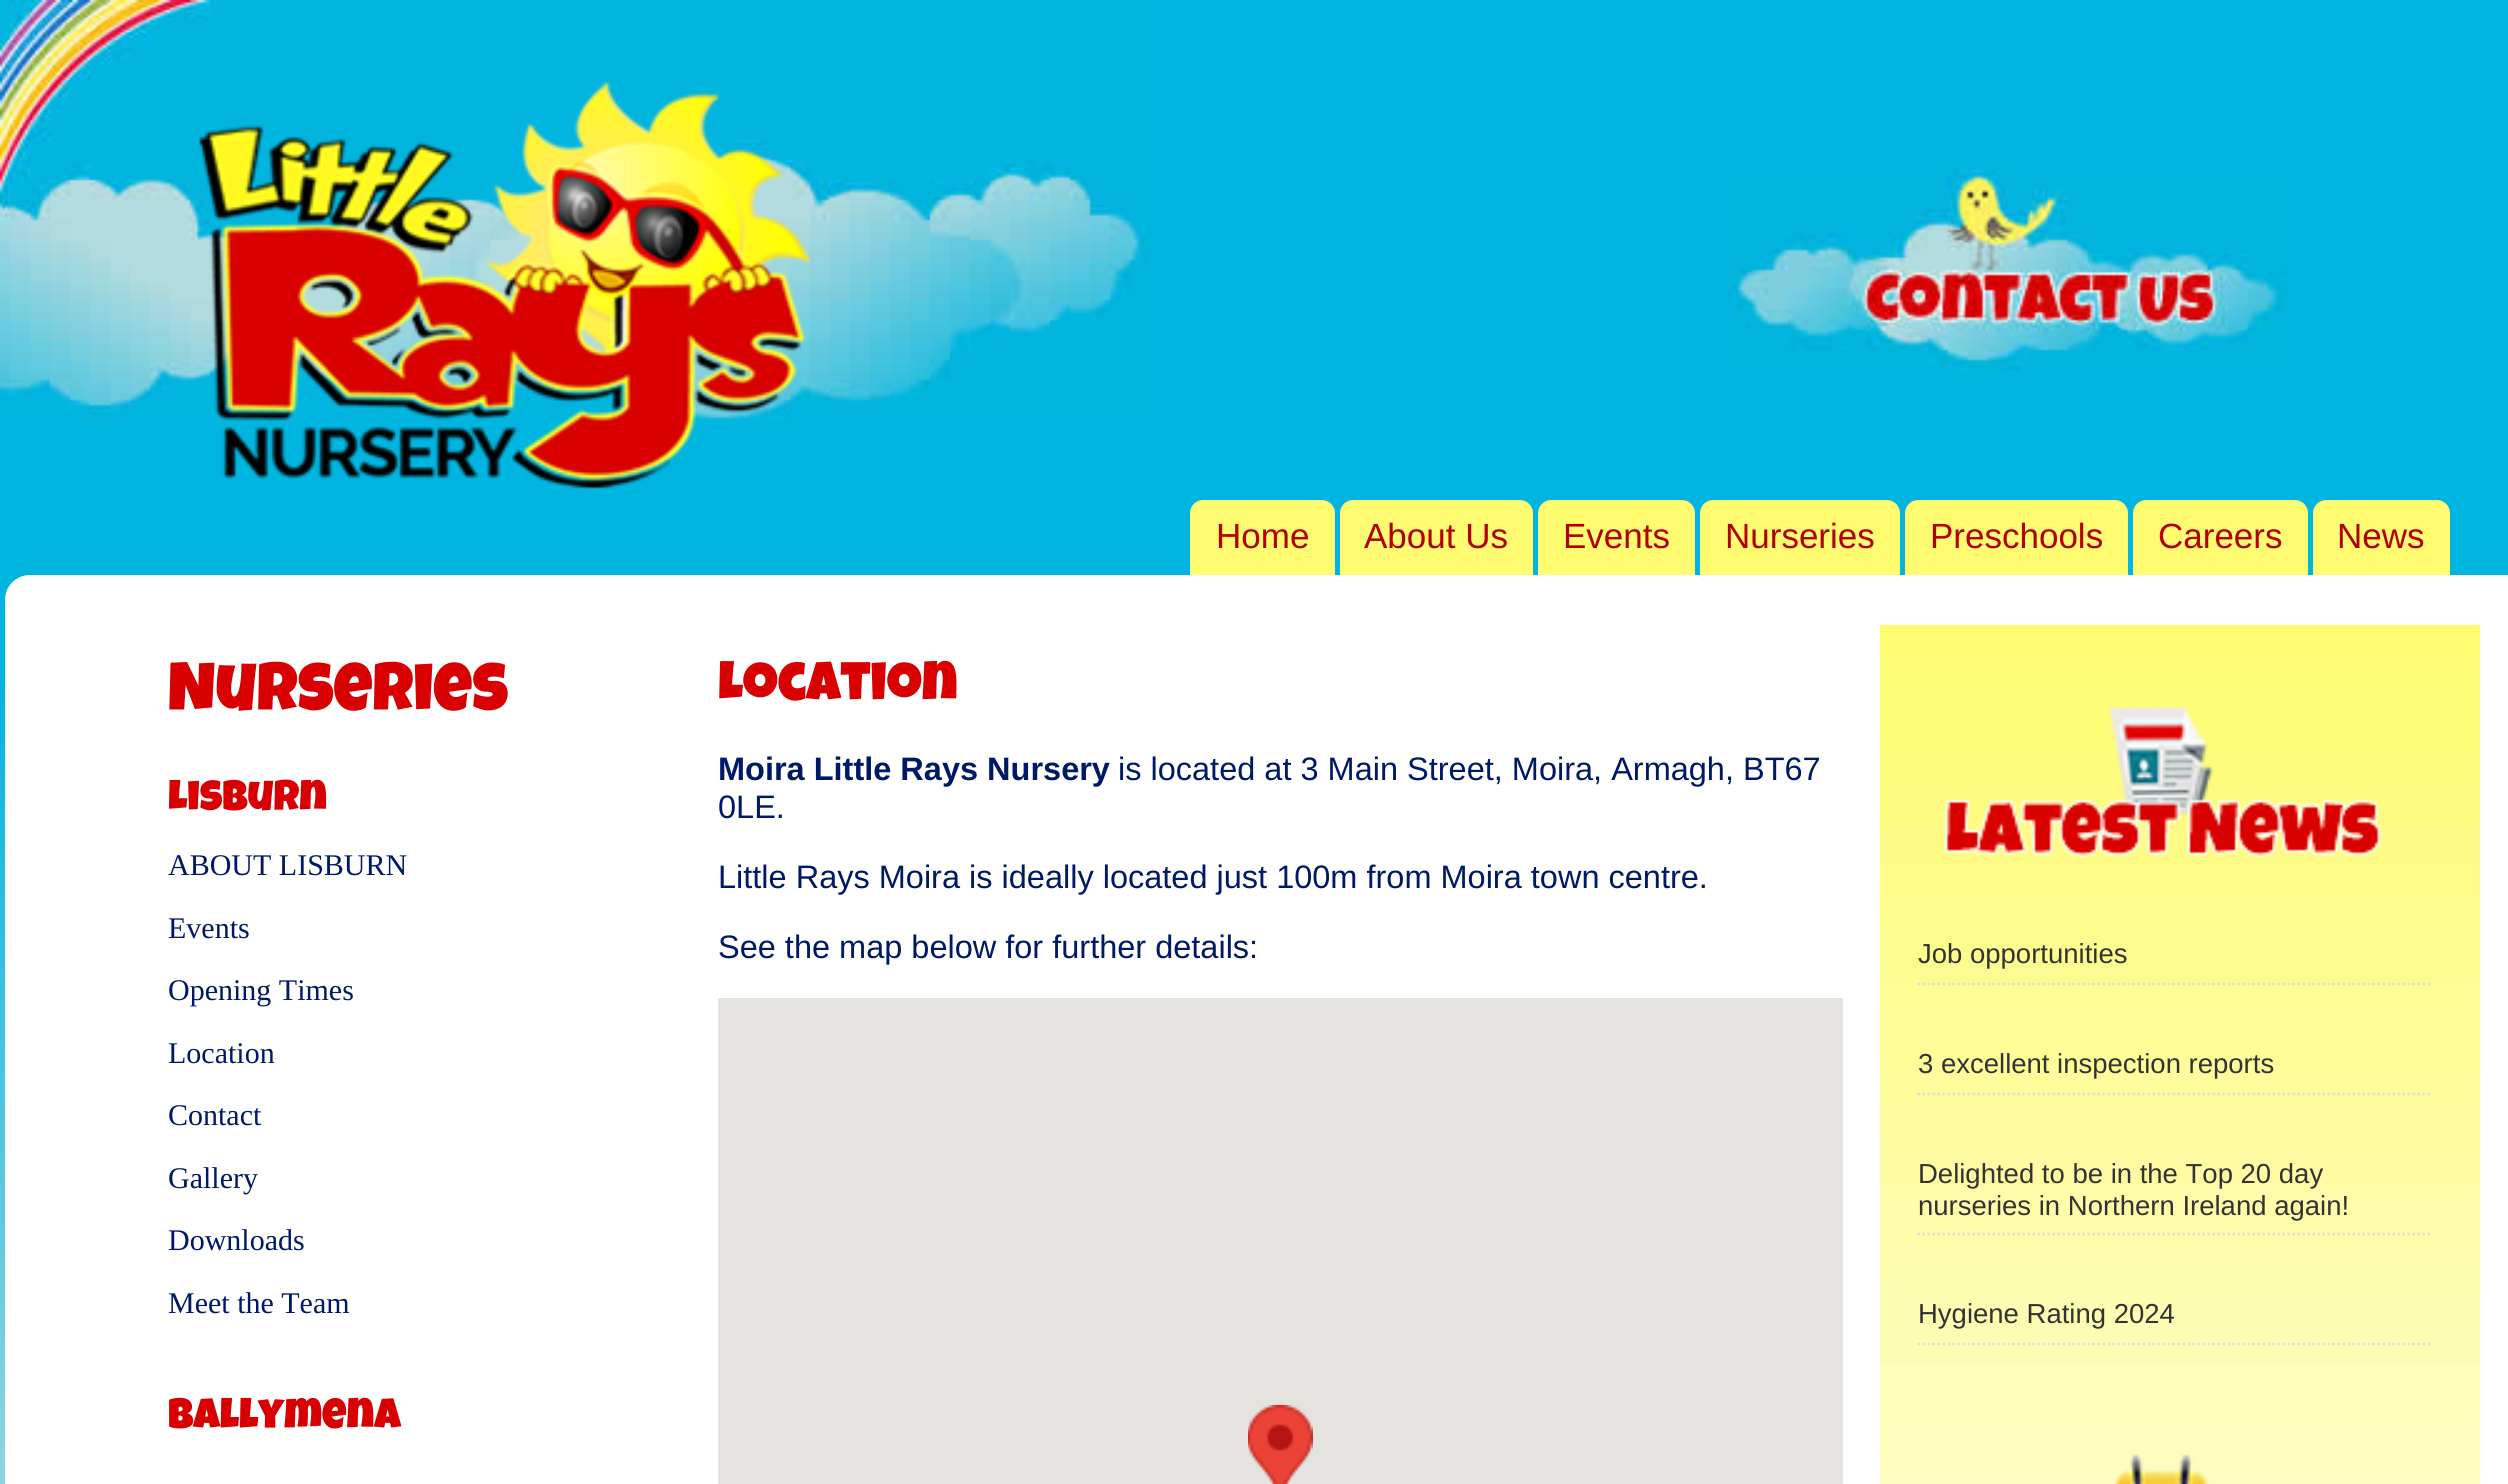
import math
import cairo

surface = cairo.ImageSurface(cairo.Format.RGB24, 2508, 1484)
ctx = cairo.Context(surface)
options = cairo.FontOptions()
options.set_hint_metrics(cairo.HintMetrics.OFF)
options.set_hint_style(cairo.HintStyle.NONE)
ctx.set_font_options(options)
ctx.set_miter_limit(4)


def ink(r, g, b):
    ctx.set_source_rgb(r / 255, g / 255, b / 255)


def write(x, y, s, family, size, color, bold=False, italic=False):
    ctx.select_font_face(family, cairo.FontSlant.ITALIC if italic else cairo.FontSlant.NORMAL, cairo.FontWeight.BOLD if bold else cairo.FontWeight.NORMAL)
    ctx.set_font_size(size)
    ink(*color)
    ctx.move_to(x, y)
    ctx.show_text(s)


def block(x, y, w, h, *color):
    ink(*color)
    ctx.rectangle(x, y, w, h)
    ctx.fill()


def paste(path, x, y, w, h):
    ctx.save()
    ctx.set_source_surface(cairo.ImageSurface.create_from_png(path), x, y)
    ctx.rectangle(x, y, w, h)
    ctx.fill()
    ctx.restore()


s1 = dict(family="Liberation Sans", size=35, color=(178, 0, 0))
s2 = dict(family="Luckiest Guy", size=67.5, color=(216, 0, 0))
s3 = dict(family="Luckiest Guy", size=42.5, color=(216, 0, 0))
s4 = dict(family="Liberation Serif", size=30, color=(0, 25, 102))
s5 = dict(family="Luckiest Guy", size=55, color=(216, 0, 0))
s6 = dict(family="Liberation Sans", size=32.5, color=(0, 25, 102), bold=True)
s7 = dict(family="Liberation Sans", size=32.5, color=(0, 25, 102))
s8 = dict(family="Liberation Sans", size=27.5, color=(51, 51, 51))

ink(255, 255, 255)
ctx.paint()
paste("pic1.png", 0, 0, 2508, 1484)
paste("pic2.png", 0, 0, 1151, 421)
paste("pic3.png", 199, 81, 612, 408)
paste("pic4.png", 1727, 169, 561, 202)
ink(255, 252, 113)
ctx.new_path()
ctx.move_to(1203, 500)
ctx.line_to(1322, 500)
ctx.curve_to(1329, 500, 1335, 506, 1335, 513)
ctx.line_to(1335, 575)
ctx.line_to(1190, 575)
ctx.line_to(1190, 513)
ctx.curve_to(1190, 506, 1196, 500, 1203, 500)
ctx.close_path()
ctx.fill()
write(1216, 548, "Home", **s1)
ink(255, 252, 113)
ctx.new_path()
ctx.move_to(1353, 500)
ctx.line_to(1520, 500)
ctx.curve_to(1527, 500, 1533, 506, 1533, 513)
ctx.line_to(1533, 575)
ctx.line_to(1340, 575)
ctx.line_to(1340, 513)
ctx.curve_to(1340, 506, 1346, 500, 1353, 500)
ctx.close_path()
ctx.fill()
write(1364, 548, "About Us", **s1)
ink(255, 252, 113)
ctx.new_path()
ctx.move_to(1551, 500)
ctx.line_to(1682, 500)
ctx.curve_to(1689, 500, 1695, 506, 1695, 513)
ctx.line_to(1695, 575)
ctx.line_to(1538, 575)
ctx.line_to(1538, 513)
ctx.curve_to(1538, 506, 1544, 500, 1551, 500)
ctx.close_path()
ctx.fill()
write(1563, 548, "Events", **s1)
ink(255, 252, 113)
ctx.new_path()
ctx.move_to(1713, 500)
ctx.line_to(1887, 500)
ctx.curve_to(1894, 500, 1900, 506, 1900, 513)
ctx.line_to(1900, 575)
ctx.line_to(1700, 575)
ctx.line_to(1700, 513)
ctx.curve_to(1700, 506, 1706, 500, 1713, 500)
ctx.close_path()
ctx.fill()
write(1725, 548, "Nurseries", **s1)
ink(255, 252, 113)
ctx.new_path()
ctx.move_to(1918, 500)
ctx.line_to(2115, 500)
ctx.curve_to(2122, 500, 2128, 506, 2128, 513)
ctx.line_to(2128, 575)
ctx.line_to(1905, 575)
ctx.line_to(1905, 513)
ctx.curve_to(1905, 506, 1911, 500, 1918, 500)
ctx.close_path()
ctx.fill()
write(1930, 548, "Preschools", **s1)
ink(255, 252, 113)
ctx.new_path()
ctx.move_to(2146, 500)
ctx.line_to(2295, 500)
ctx.curve_to(2302, 500, 2308, 506, 2308, 513)
ctx.line_to(2308, 575)
ctx.line_to(2133, 575)
ctx.line_to(2133, 513)
ctx.curve_to(2133, 506, 2139, 500, 2146, 500)
ctx.close_path()
ctx.fill()
write(2158, 548, "Careers", **s1)
ink(255, 252, 113)
ctx.new_path()
ctx.move_to(2326, 500)
ctx.line_to(2437, 500)
ctx.curve_to(2444, 500, 2450, 506, 2450, 513)
ctx.line_to(2450, 575)
ctx.line_to(2313, 575)
ctx.line_to(2313, 513)
ctx.curve_to(2313, 506, 2319, 500, 2326, 500)
ctx.close_path()
ctx.fill()
write(2337, 548, "News", **s1)
ink(255, 255, 255)
ctx.new_path()
ctx.move_to(30, 575)
ctx.line_to(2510, 575)
ctx.line_to(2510, 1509)
ctx.line_to(30, 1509)
ctx.curve_to(16, 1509, 5, 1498, 5, 1484)
ctx.line_to(5, 600)
ctx.curve_to(5, 586, 16, 575, 30, 575)
ctx.close_path()
ctx.fill()
write(168, 710, "Nurseries", **s2)
write(168, 810, "Lisburn", **s3)
write(168, 875, "ABOUT LISBURN", **s4)
write(168, 938, "Events", **s4)
write(168, 1000, "Opening Times", **s4)
write(168, 1063, "Location", **s4)
write(168, 1125, "Contact", **s4)
write(168, 1188, "Gallery", **s4)
write(168, 1250, "Downloads", **s4)
write(168, 1313, "Meet the Team", **s4)
write(168, 1428, "Ballymena", **s3)
write(718, 700, "Location", **s5)
write(718, 780, "Moira Little Rays Nursery", **s6)
write(1118, 780, "is located at 3 Main Street, Moira, Armagh, BT67", **s7)
write(718, 818, "0LE.", **s7)
write(718, 888, "Little Rays Moira is ideally located just 100m from Moira town centre.", **s7)
write(718, 958, "See the map below for further details:", **s7)
block(718, 998, 1125, 486, 229, 227, 223)
paste("pic5.png", 1248, 1405, 65, 79)
paste("pic6.png", 1880, 625, 600, 859)
paste("pic7.png", 1944, 706, 439, 153)
ctx.new_path()
ctx.move_to(1917.5, 984)
ctx.line_to(2430, 984)
ink(221, 221, 221)
ctx.set_line_width(2.5)
ctx.set_dash([2.5, 2.5])
ctx.stroke()
write(1918, 963, "Job opportunities", **s8)
ctx.new_path()
ctx.move_to(1917.5, 1094)
ctx.line_to(2430, 1094)
ink(221, 221, 221)
ctx.stroke()
write(1918, 1073, "3 excellent inspection reports", **s8)
ctx.new_path()
ctx.move_to(1917.5, 1234)
ctx.line_to(2430, 1234)
ink(221, 221, 221)
ctx.stroke()
write(1918, 1183, "Delighted to be in the Top 20 day", **s8)
write(1918, 1215, "nurseries in Northern Ireland again!", **s8)
ctx.new_path()
ctx.move_to(1917.5, 1344)
ctx.line_to(2430, 1344)
ink(221, 221, 221)
ctx.stroke()
write(1918, 1323, "Hygiene Rating 2024", **s8)
paste("pic8.png", 2114, 1454, 95, 30)
surface.write_to_png("screenshot.png")
